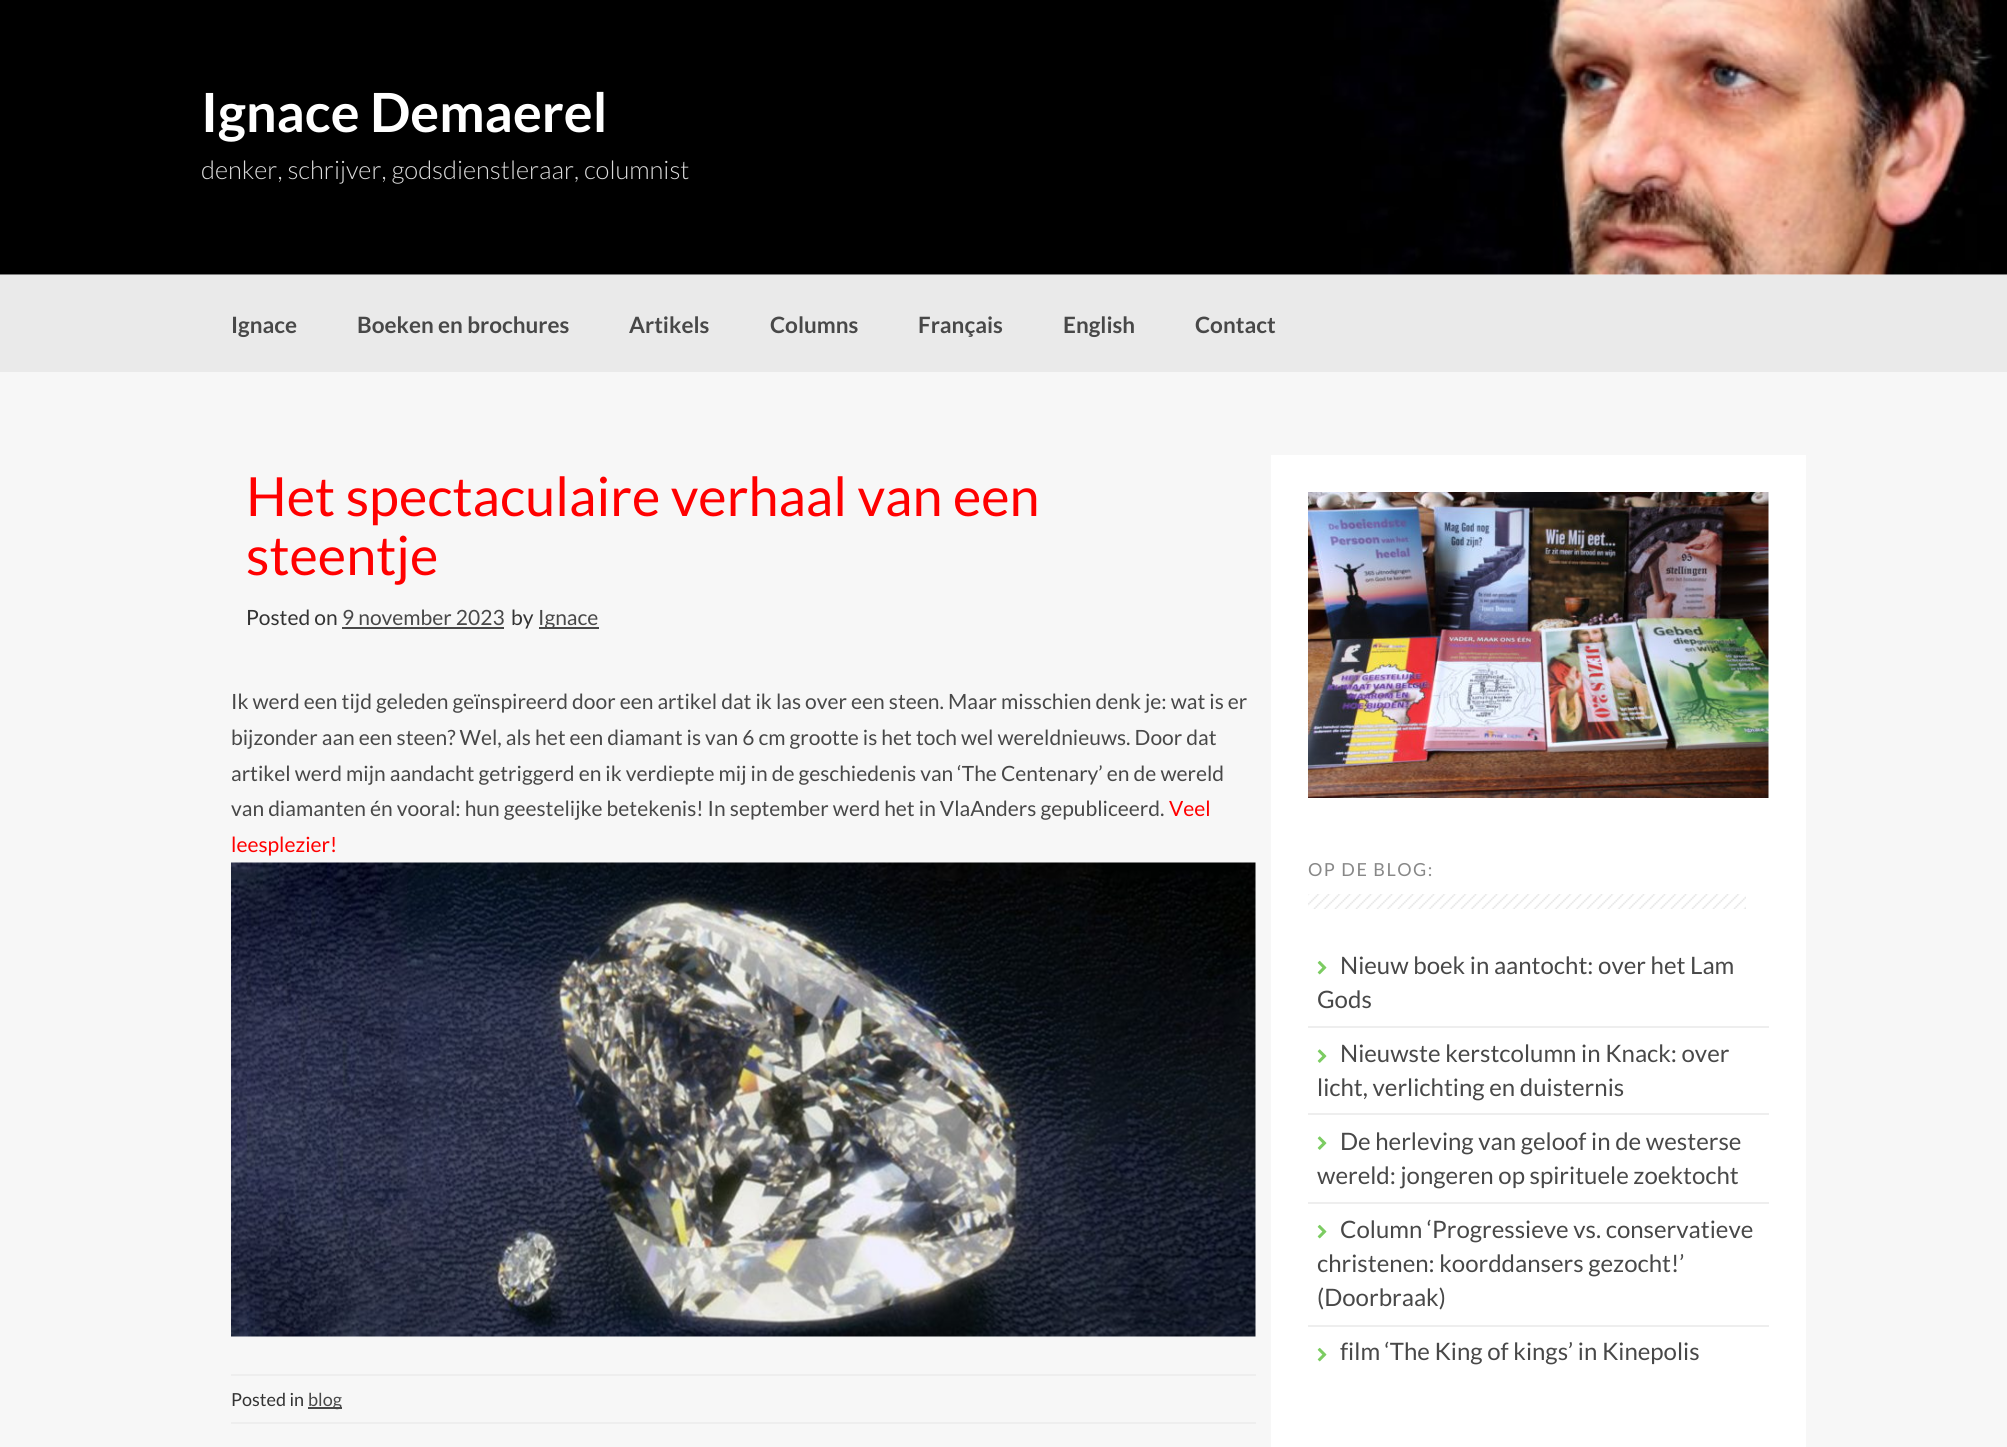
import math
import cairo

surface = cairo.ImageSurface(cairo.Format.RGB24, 2007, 1447)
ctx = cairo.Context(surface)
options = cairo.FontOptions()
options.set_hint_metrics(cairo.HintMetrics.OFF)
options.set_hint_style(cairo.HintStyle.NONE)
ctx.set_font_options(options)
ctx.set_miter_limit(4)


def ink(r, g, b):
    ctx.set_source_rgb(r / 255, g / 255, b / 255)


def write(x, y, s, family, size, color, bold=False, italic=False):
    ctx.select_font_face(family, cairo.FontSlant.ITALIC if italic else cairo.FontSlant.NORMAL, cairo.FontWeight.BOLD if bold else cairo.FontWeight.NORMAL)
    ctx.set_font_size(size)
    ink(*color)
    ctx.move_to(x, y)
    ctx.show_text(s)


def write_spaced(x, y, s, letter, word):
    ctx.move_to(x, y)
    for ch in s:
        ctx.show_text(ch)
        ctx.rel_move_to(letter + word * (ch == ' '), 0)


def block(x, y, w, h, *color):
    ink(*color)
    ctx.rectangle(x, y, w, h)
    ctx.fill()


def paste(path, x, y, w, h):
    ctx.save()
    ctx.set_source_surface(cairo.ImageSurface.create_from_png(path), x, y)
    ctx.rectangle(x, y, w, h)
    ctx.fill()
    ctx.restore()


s1 = dict(family="Lato", size=54, color=(255, 255, 255), bold=True)
s2 = dict(family="Lato Light", size=25.5, color=(219, 219, 219))
s3 = dict(family="Lato", size=22.5, color=(72, 72, 72), bold=True)
s4 = dict(family="Lato", size=54, color=(255, 0, 0))
s5 = dict(family="Lato", size=21, color=(51, 51, 51))
s6 = dict(family="Lato", size=21, color=(72, 72, 72))
s7 = dict(family="Lato", size=21, color=(255, 0, 0))
s8 = dict(family="Lato", size=18, color=(51, 51, 51))
s9 = dict(family="Lato", size=18, color=(72, 72, 72))
s10 = dict(family="Lato", size=24, color=(72, 72, 72))

ink(247, 247, 247)
ctx.paint()
paste("pic1.png", 0, 0, 2007, 275)
write(201, 132, "Ignace Demaerel", **s1)
write(201, 179, "denker, schrijver, godsdienstleraar, columnist", **s2)
block(0, 275, 2007, 97, 234, 234, 234)
write(231, 333, "Ignace", **s3)
write(357, 333, "Boeken en brochures", **s3)
write(629, 333, "Artikels", **s3)
write(770, 333, "Columns", **s3)
write(918, 333, "Français", **s3)
write(1063, 333, "English", **s3)
write(1195, 333, "Contact", **s3)
write(246, 516, "Het spectaculaire verhaal van een", **s4)
write(246, 575, "steentje", **s4)
write(246, 625, "Posted on", **s5)
write(342, 625, "9 november 2023", **s6)
block(342, 627, 162, 2, 72, 72, 72)
write(511, 625, "by", **s5)
block(539, 627, 60, 2, 72, 72, 72)
write(538, 625, "Ignace", **s6)
write(231, 709, "Ik werd een tijd geleden geïnspireerd door een artikel dat ik las over een steen. Maar misschien denk je: wat is er", **s6)
write(231, 745, "bijzonder aan een steen? Wel, als het een diamant is van 6 cm grootte is het toch wel wereldnieuws. Door dat", **s6)
write(231, 781, "artikel werd mijn aandacht getriggerd en ik verdiepte mij in de geschiedenis van ‘The Centenary’ en de wereld", **s6)
write(231, 816, "van diamanten én vooral: hun geestelijke betekenis! In september werd het in VlaAnders gepubliceerd.", **s6)
write(1169, 816, "Veel", **s7)
write(231, 852, "leesplezier!", **s7)
paste("pic2.png", 231, 862, 1025, 475)
block(231, 1374, 1025, 2, 238, 238, 238)
block(231, 1422, 1025, 2, 238, 238, 238)
write(231, 1406, "Posted in", **s8)
block(308, 1407, 34, 2, 72, 72, 72)
write(308, 1406, "blog", **s9)
block(1271, 455, 535, 992, 255, 255, 255)
paste("pic3.png", 1308, 492, 461, 306)
ink(136, 136, 136)
write_spaced(1308, 876, "OP DE BLOG:", 1.5, 0)
paste("pic4.png", 1308, 894, 438, 15)
block(1308, 1026, 461, 2, 238, 238, 238)
paste("pic5.png", 1317, 960, 10, 15)
write(1340, 974, "Nieuw boek in aantocht: over het Lam", **s10)
write(1317, 1008, "Gods", **s10)
block(1308, 1113, 461, 2, 238, 238, 238)
paste("pic6.png", 1317, 1049, 10, 14)
write(1340, 1062, "Nieuwste kerstcolumn in Knack: over", **s10)
write(1317, 1096, "licht, verlichting en duisternis", **s10)
block(1308, 1202, 461, 2, 238, 238, 238)
paste("pic6.png", 1317, 1136, 10, 14)
write(1340, 1150, "De herleving van geloof in de westerse", **s10)
write(1317, 1184, "wereld: jongeren op spirituele zoektocht", **s10)
block(1308, 1325, 461, 2, 238, 238, 238)
paste("pic5.png", 1317, 1224, 10, 15)
write(1340, 1238, "Column ‘Progressieve vs. conservatieve", **s10)
write(1317, 1272, "christenen: koorddansers gezocht!’", **s10)
write(1317, 1306, "(Doorbraak)", **s10)
paste("pic5.png", 1317, 1347, 10, 15)
write(1340, 1360, "film ‘The King of kings’ in Kinepolis", **s10)
surface.write_to_png("screenshot.png")
